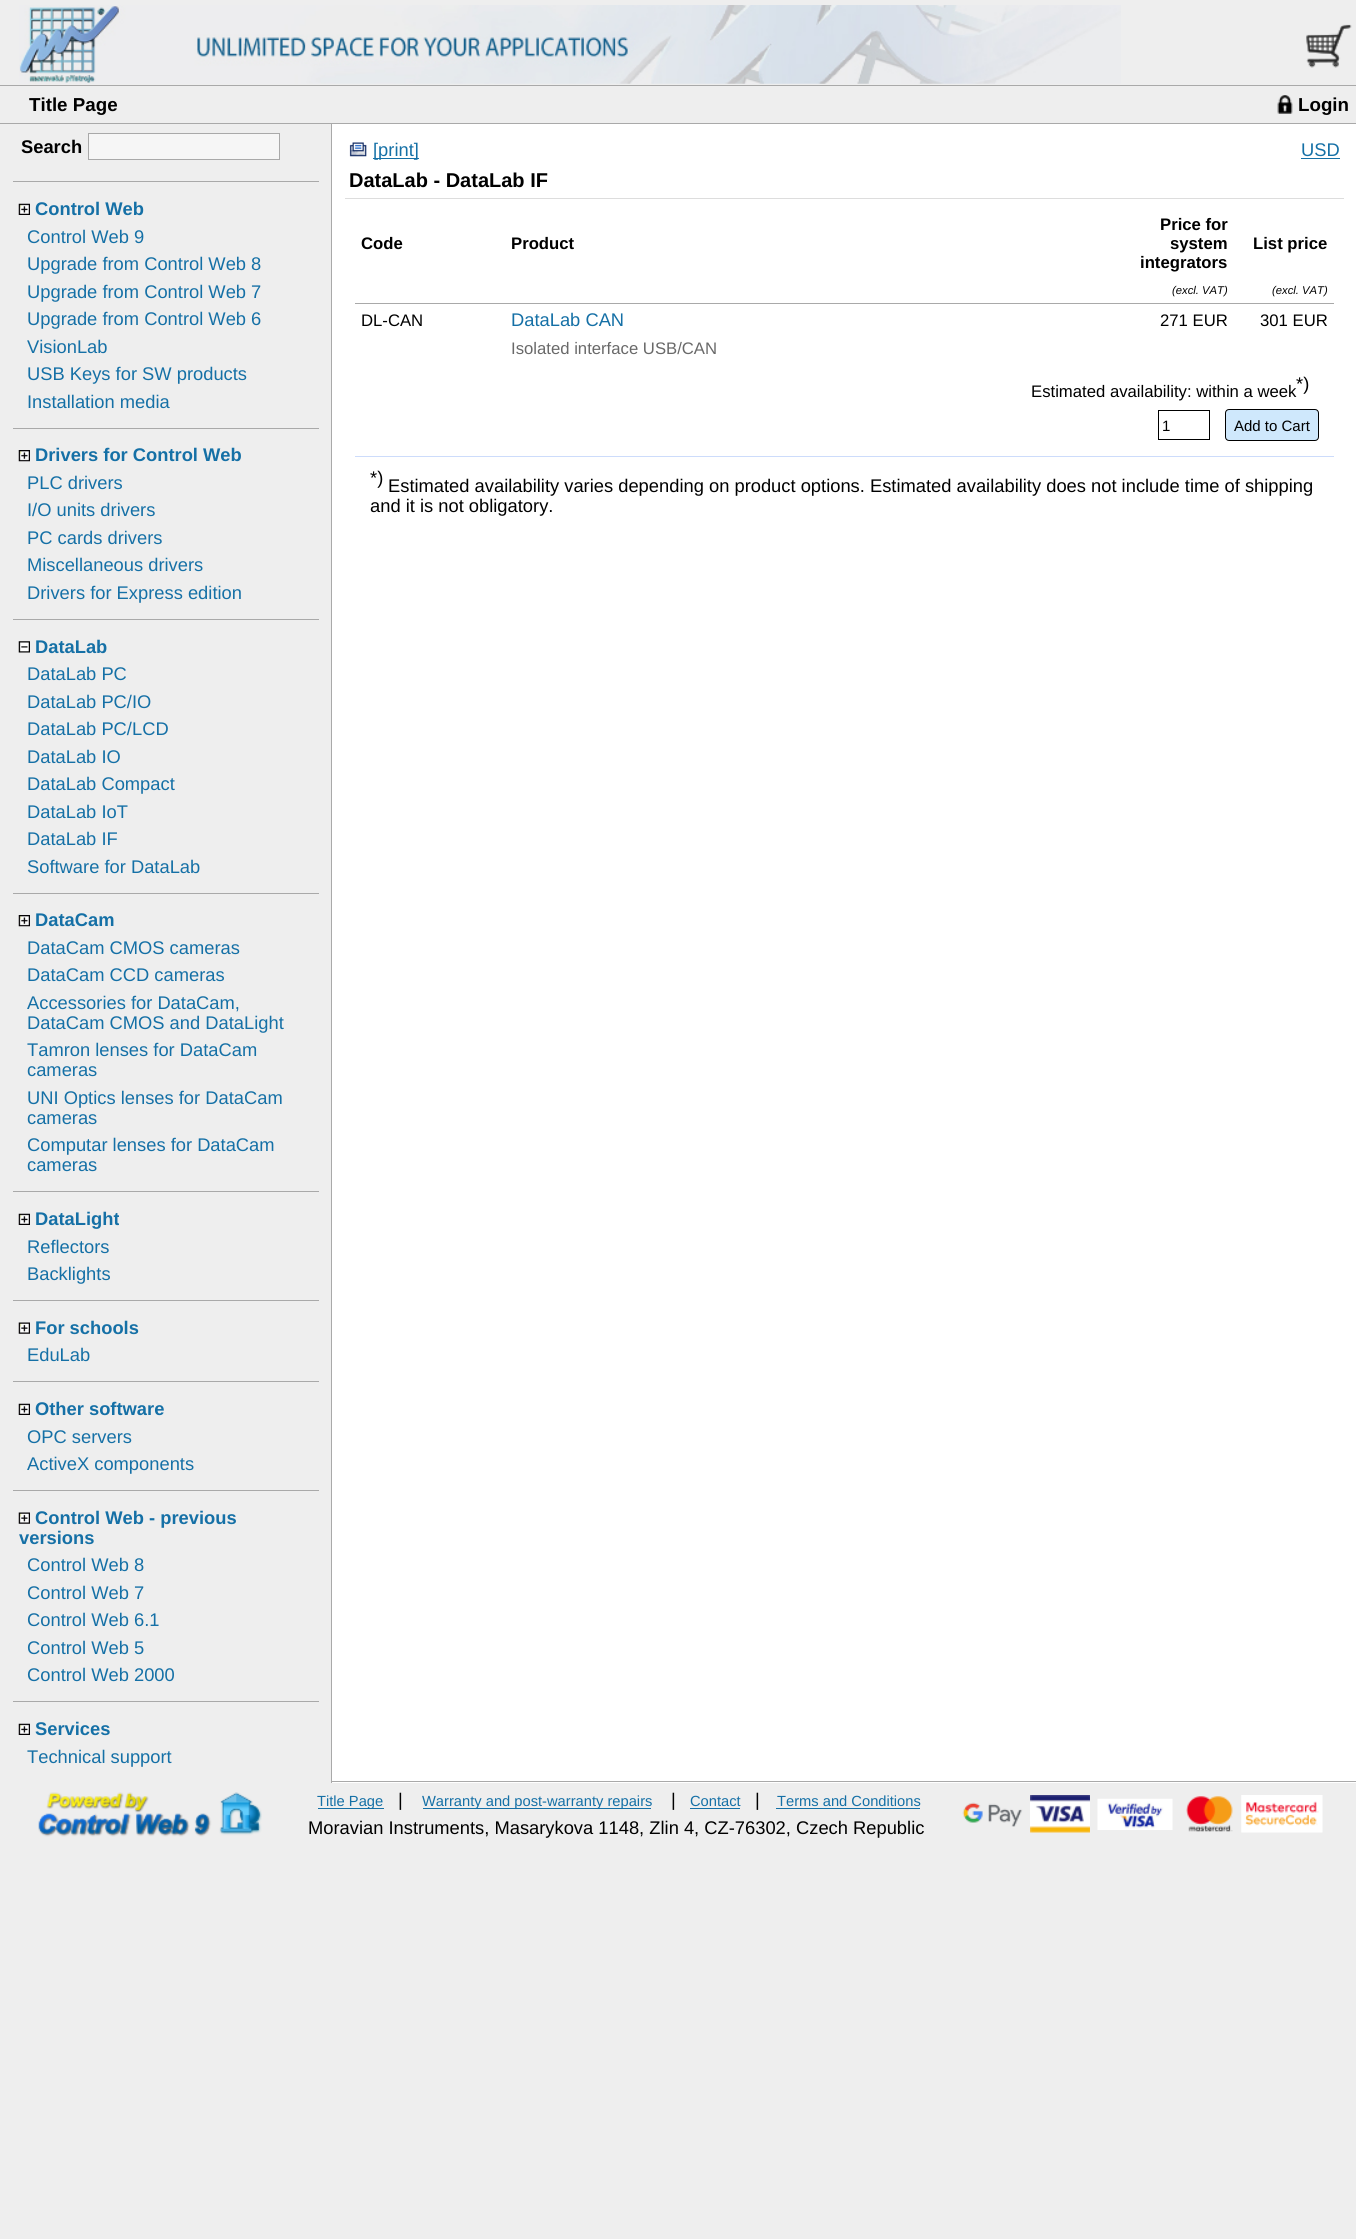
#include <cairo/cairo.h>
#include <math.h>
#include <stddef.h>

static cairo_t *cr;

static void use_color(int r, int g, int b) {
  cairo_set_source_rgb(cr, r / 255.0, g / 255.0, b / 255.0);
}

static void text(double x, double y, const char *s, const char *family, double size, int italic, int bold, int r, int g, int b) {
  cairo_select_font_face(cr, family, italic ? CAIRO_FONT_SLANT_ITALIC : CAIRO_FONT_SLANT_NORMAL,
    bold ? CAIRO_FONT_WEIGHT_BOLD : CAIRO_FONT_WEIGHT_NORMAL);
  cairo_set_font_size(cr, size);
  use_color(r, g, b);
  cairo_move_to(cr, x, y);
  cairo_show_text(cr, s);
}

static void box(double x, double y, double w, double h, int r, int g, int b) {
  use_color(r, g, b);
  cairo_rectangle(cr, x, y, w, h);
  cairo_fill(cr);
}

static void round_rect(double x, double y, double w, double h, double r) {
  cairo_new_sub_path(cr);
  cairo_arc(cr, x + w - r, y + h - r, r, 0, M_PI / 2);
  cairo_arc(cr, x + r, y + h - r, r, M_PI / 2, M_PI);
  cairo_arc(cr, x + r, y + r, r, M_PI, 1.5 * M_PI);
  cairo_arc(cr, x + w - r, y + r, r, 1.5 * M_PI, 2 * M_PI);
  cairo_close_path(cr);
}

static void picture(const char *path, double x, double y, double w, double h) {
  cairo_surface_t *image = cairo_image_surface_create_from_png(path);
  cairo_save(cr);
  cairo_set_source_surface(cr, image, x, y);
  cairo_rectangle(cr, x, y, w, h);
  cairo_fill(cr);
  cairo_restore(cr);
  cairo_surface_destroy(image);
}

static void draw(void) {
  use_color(238, 238, 238);
  cairo_paint(cr);
  picture("img_01.png", 19, 5, 1102, 79);
  picture("img_02.png", 1306, 24, 46, 44);
  box(0, 85, 1356, 1, 169, 169, 169);
  box(0, 123, 1356, 1, 169, 169, 169);
  picture("img_03.png", 1277, 95, 16, 19);
  box(332, 124, 1024, 1659, 255, 255, 255);
  use_color(246, 246, 246);
  cairo_rectangle(cr, 88.5, 133.5, 191, 26);
  cairo_fill_preserve(cr);
  use_color(169, 169, 169);
  cairo_set_line_width(cr, 1);
  cairo_stroke(cr);
  box(13, 181, 306, 1, 169, 169, 169);
  picture("img_04.png", 18, 203, 12, 12);
  box(13, 428, 306, 1, 169, 169, 169);
  picture("img_05.png", 18, 450, 12, 12);
  box(13, 619, 306, 1, 169, 169, 169);
  picture("img_06.png", 18, 641, 12, 12);
  box(13, 893, 306, 1, 169, 169, 169);
  picture("img_05.png", 18, 915, 12, 12);
  box(13, 1191, 306, 1, 169, 169, 169);
  picture("img_04.png", 18, 1213, 12, 12);
  box(13, 1300, 306, 1, 169, 169, 169);
  picture("img_07.png", 18, 1322, 12, 12);
  box(13, 1381, 306, 1, 169, 169, 169);
  picture("img_04.png", 18, 1403, 12, 12);
  box(13, 1490, 306, 1, 169, 169, 169);
  picture("img_07.png", 18, 1512, 12, 12);
  box(13, 1701, 306, 1, 169, 169, 169);
  picture("img_04.png", 18, 1723, 12, 12);
  box(331, 1781, 1025, 1, 169, 169, 169);
  box(331, 124, 1, 1659, 169, 169, 169);
  picture("img_08.png", 349, 142, 18, 15);
  box(373, 158, 46, 1, 21, 112, 166);
  box(1301, 158, 39, 1, 21, 112, 166);
  box(345, 198, 999, 1, 221, 221, 221);
  box(355, 456, 979, 1, 205, 220, 251);
  box(355, 303, 979, 1, 169, 169, 169);
  cairo_rectangle(cr, 1158.5, 410.5, 51, 29);
  use_color(0, 0, 0);
  cairo_stroke(cr);
  use_color(207, 232, 252);
  round_rect(1225.5, 409.5, 93, 31, 3.5);
  cairo_fill_preserve(cr);
  use_color(0, 0, 0);
  cairo_stroke(cr);
  picture("img_09.png", 38, 1792, 224, 45);
  box(318, 1808, 66, 1, 21, 112, 166);
  box(423, 1808, 228, 1, 21, 112, 166);
  box(690, 1808, 50, 1, 21, 112, 166);
  box(776, 1808, 144, 1, 21, 112, 166);
  picture("img_10.png", 962, 1802, 61, 25);
  picture("img_11.png", 1030, 1795, 60, 38);
  picture("img_12.png", 1097, 1798, 76, 32);
  picture("img_13.png", 1186, 1796, 47, 36);
  picture("img_14.png", 1241, 1795, 82, 38);
  text(29, 111, "Title Page", "Liberation Sans", 18.75, 0, 1, 0, 0, 0);
  text(1298, 111, "Login", "Liberation Sans", 18.75, 0, 1, 0, 0, 0);
  text(21, 153, "Search", "Liberation Sans", 18.33, 0, 1, 0, 0, 0);
  text(35, 215, "Control Web", "Liberation Sans", 18.33, 0, 1, 21, 112, 166);
  text(27, 243, "Control Web 9", "Liberation Sans", 18.33, 0, 0, 21, 112, 166);
  text(27, 270, "Upgrade from Control Web 8", "Liberation Sans", 18.33, 0, 0, 21, 112, 166);
  text(27, 298, "Upgrade from Control Web 7", "Liberation Sans", 18.33, 0, 0, 21, 112, 166);
  text(27, 325, "Upgrade from Control Web 6", "Liberation Sans", 18.33, 0, 0, 21, 112, 166);
  text(27, 353, "VisionLab", "Liberation Sans", 18.33, 0, 0, 21, 112, 166);
  text(27, 380, "USB Keys for SW products", "Liberation Sans", 18.33, 0, 0, 21, 112, 166);
  text(27, 408, "Installation media", "Liberation Sans", 18.33, 0, 0, 21, 112, 166);
  text(35, 461, "Drivers for Control Web", "Liberation Sans", 18.33, 0, 1, 21, 112, 166);
  text(27, 489, "PLC drivers", "Liberation Sans", 18.33, 0, 0, 21, 112, 166);
  text(27, 516, "I/O units drivers", "Liberation Sans", 18.33, 0, 0, 21, 112, 166);
  text(27, 544, "PC cards drivers", "Liberation Sans", 18.33, 0, 0, 21, 112, 166);
  text(27, 571, "Miscellaneous drivers", "Liberation Sans", 18.33, 0, 0, 21, 112, 166);
  text(27, 599, "Drivers for Express edition", "Liberation Sans", 18.33, 0, 0, 21, 112, 166);
  text(35, 653, "DataLab", "Liberation Sans", 18.33, 0, 1, 21, 112, 166);
  text(27, 680, "DataLab PC", "Liberation Sans", 18.33, 0, 0, 21, 112, 166);
  text(27, 708, "DataLab PC/IO", "Liberation Sans", 18.33, 0, 0, 21, 112, 166);
  text(27, 735, "DataLab PC/LCD", "Liberation Sans", 18.33, 0, 0, 21, 112, 166);
  text(27, 763, "DataLab IO", "Liberation Sans", 18.33, 0, 0, 21, 112, 166);
  text(27, 790, "DataLab Compact", "Liberation Sans", 18.33, 0, 0, 21, 112, 166);
  text(27, 818, "DataLab IoT", "Liberation Sans", 18.33, 0, 0, 21, 112, 166);
  text(27, 845, "DataLab IF", "Liberation Sans", 18.33, 0, 0, 21, 112, 166);
  text(27, 873, "Software for DataLab", "Liberation Sans", 18.33, 0, 0, 21, 112, 166);
  text(35, 926, "DataCam", "Liberation Sans", 18.33, 0, 1, 21, 112, 166);
  text(27, 954, "DataCam CMOS cameras", "Liberation Sans", 18.33, 0, 0, 21, 112, 166);
  text(27, 981, "DataCam CCD cameras", "Liberation Sans", 18.33, 0, 0, 21, 112, 166);
  text(27, 1009, "Accessories for DataCam,", "Liberation Sans", 18.33, 0, 0, 21, 112, 166);
  text(27, 1029, "DataCam CMOS and DataLight", "Liberation Sans", 18.33, 0, 0, 21, 112, 166);
  text(27, 1056, "Tamron lenses for DataCam", "Liberation Sans", 18.33, 0, 0, 21, 112, 166);
  text(27, 1076, "cameras", "Liberation Sans", 18.33, 0, 0, 21, 112, 166);
  text(27, 1104, "UNI Optics lenses for DataCam", "Liberation Sans", 18.33, 0, 0, 21, 112, 166);
  text(27, 1124, "cameras", "Liberation Sans", 18.33, 0, 0, 21, 112, 166);
  text(27, 1151, "Computar lenses for DataCam", "Liberation Sans", 18.33, 0, 0, 21, 112, 166);
  text(27, 1171, "cameras", "Liberation Sans", 18.33, 0, 0, 21, 112, 166);
  text(35, 1225, "DataLight", "Liberation Sans", 18.33, 0, 1, 21, 112, 166);
  text(27, 1253, "Reflectors", "Liberation Sans", 18.33, 0, 0, 21, 112, 166);
  text(27, 1280, "Backlights", "Liberation Sans", 18.33, 0, 0, 21, 112, 166);
  text(35, 1334, "For schools", "Liberation Sans", 18.33, 0, 1, 21, 112, 166);
  text(27, 1361, "EduLab", "Liberation Sans", 18.33, 0, 0, 21, 112, 166);
  text(35, 1415, "Other software", "Liberation Sans", 18.33, 0, 1, 21, 112, 166);
  text(27, 1443, "OPC servers", "Liberation Sans", 18.33, 0, 0, 21, 112, 166);
  text(27, 1470, "ActiveX components", "Liberation Sans", 18.33, 0, 0, 21, 112, 166);
  text(35, 1524, "Control Web - previous", "Liberation Sans", 18.33, 0, 1, 21, 112, 166);
  text(19, 1544, "versions", "Liberation Sans", 18.33, 0, 1, 21, 112, 166);
  text(27, 1571, "Control Web 8", "Liberation Sans", 18.33, 0, 0, 21, 112, 166);
  text(27, 1599, "Control Web 7", "Liberation Sans", 18.33, 0, 0, 21, 112, 166);
  text(27, 1626, "Control Web 6.1", "Liberation Sans", 18.33, 0, 0, 21, 112, 166);
  text(27, 1654, "Control Web 5", "Liberation Sans", 18.33, 0, 0, 21, 112, 166);
  text(27, 1681, "Control Web 2000", "Liberation Sans", 18.33, 0, 0, 21, 112, 166);
  text(35, 1735, "Services", "Liberation Sans", 18.33, 0, 1, 21, 112, 166);
  text(27, 1763, "Technical support", "Liberation Sans", 18.33, 0, 0, 21, 112, 166);
  text(373, 156, "[print]", "Liberation Sans", 18.33, 0, 0, 21, 112, 166);
  text(1301, 156, "USD", "Liberation Sans", 18.33, 0, 0, 21, 112, 166);
  text(349, 187, "DataLab - DataLab IF", "Liberation Sans", 20, 0, 1, 0, 0, 0);
  text(361, 249, "Code", "Liberation Sans", 16.7, 0, 1, 0, 0, 0);
  text(511, 249, "Product", "Liberation Sans", 16.7, 0, 1, 0, 0, 0);
  text(1160, 230, "Price for", "Liberation Sans", 16.7, 0, 1, 0, 0, 0);
  text(1170, 249, "system", "Liberation Sans", 16.7, 0, 1, 0, 0, 0);
  text(1140, 268, "integrators", "Liberation Sans", 16.7, 0, 1, 0, 0, 0);
  text(1253, 249, "List price", "Liberation Sans", 16.7, 0, 1, 0, 0, 0);
  text(1172, 294, "(excl. VAT)", "Liberation Sans", 11.25, 1, 0, 0, 0, 0);
  text(1272, 294, "(excl. VAT)", "Liberation Sans", 11.25, 1, 0, 0, 0, 0);
  text(361, 326, "DL-CAN", "Liberation Sans", 16.7, 0, 0, 0, 0, 0);
  text(511, 326, "DataLab CAN", "Liberation Sans", 18.33, 0, 0, 21, 112, 166);
  text(1160, 326, "271 EUR", "Liberation Sans", 16.7, 0, 0, 0, 0, 0);
  text(1260, 326, "301 EUR", "Liberation Sans", 16.7, 0, 0, 0, 0, 0);
  text(511, 354, "Isolated interface USB/CAN", "Liberation Sans", 16.7, 0, 0, 105, 105, 105);
  text(1031, 397, "Estimated availability: within a week", "Liberation Sans", 16.7, 0, 0, 0, 0, 0);
  text(1296, 390, "*)", "Liberation Sans", 18.33, 0, 0, 0, 0, 0);
  text(1162, 431, "1", "Liberation Sans", 15, 0, 0, 0, 0, 0);
  text(1234, 431, "Add to Cart", "Liberation Sans", 15, 0, 0, 0, 0, 0);
  text(370, 484, "*)", "Liberation Sans", 18.33, 0, 0, 0, 0, 0);
  text(388, 492, "Estimated availability varies depending on product options. Estimated availability does not include time of shipping", "Liberation Sans", 18.33, 0, 0, 0, 0, 0);
  text(370, 512, "and it is not obligatory.", "Liberation Sans", 18.33, 0, 0, 0, 0, 0);
  text(317, 1806, "Title Page", "Liberation Sans", 14.7, 0, 0, 21, 112, 166);
  text(398, 1806, "|", "Liberation Sans", 18.33, 0, 0, 0, 0, 0);
  text(422, 1806, "Warranty and post-warranty repairs", "Liberation Sans", 14.7, 0, 0, 21, 112, 166);
  text(671, 1806, "|", "Liberation Sans", 18.33, 0, 0, 0, 0, 0);
  text(690, 1806, "Contact", "Liberation Sans", 14.7, 0, 0, 21, 112, 166);
  text(755, 1806, "|", "Liberation Sans", 18.33, 0, 0, 0, 0, 0);
  text(777, 1806, "Terms and Conditions", "Liberation Sans", 14.7, 0, 0, 21, 112, 166);
  text(308, 1834, "Moravian Instruments, Masarykova 1148, Zlin 4, CZ-76302, Czech Republic", "Liberation Sans", 18.33, 0, 0, 0, 0, 0);
}

int main(void) {
  cairo_surface_t *surface = cairo_image_surface_create(CAIRO_FORMAT_RGB24, 1356, 2239);
  cr = cairo_create(surface);
  cairo_font_options_t *options = cairo_font_options_create();
  cairo_font_options_set_hint_metrics(options, CAIRO_HINT_METRICS_OFF);
  cairo_font_options_set_hint_style(options, CAIRO_HINT_STYLE_NONE);
  cairo_set_font_options(cr, options);
  cairo_set_miter_limit(cr, 4);
  draw();
  cairo_surface_write_to_png(surface, "out.png");
  cairo_font_options_destroy(options);
  cairo_destroy(cr);
  cairo_surface_destroy(surface);
  return 0;
}
